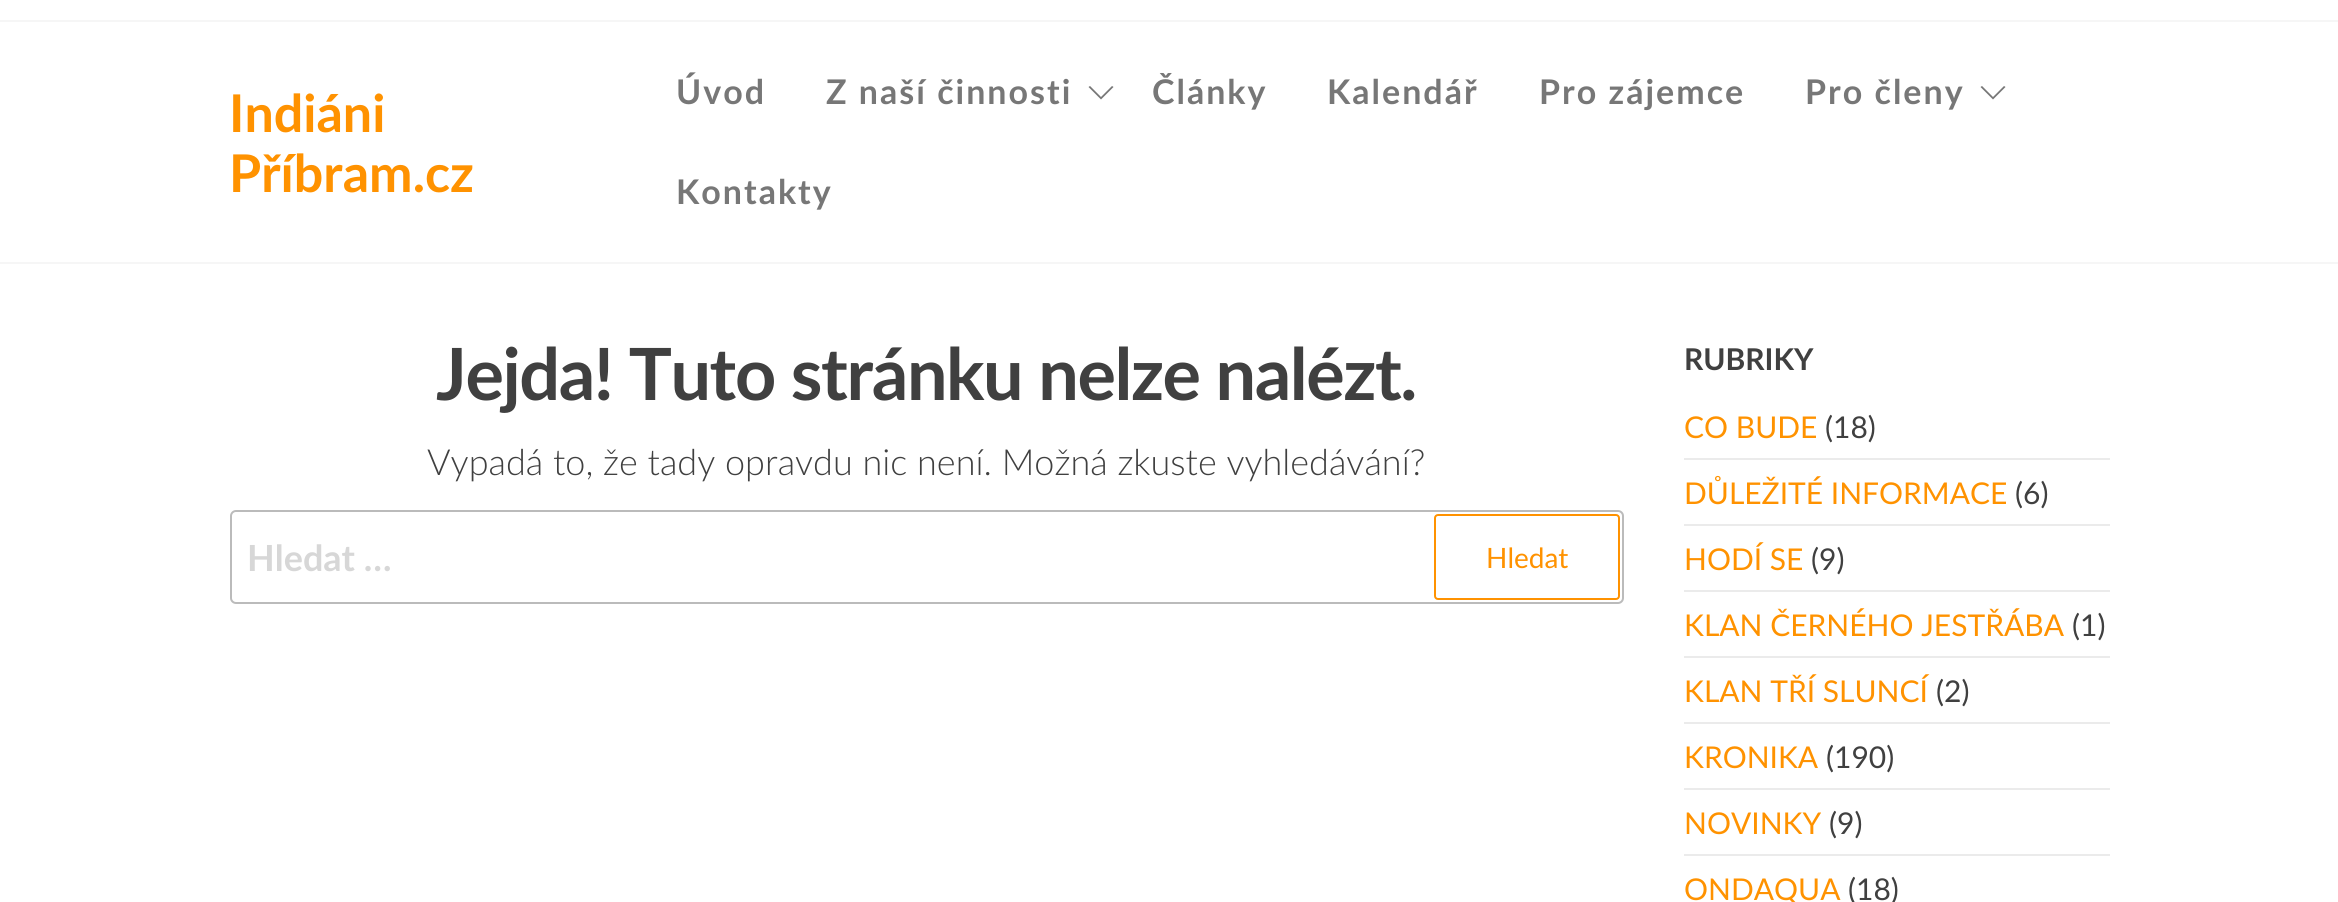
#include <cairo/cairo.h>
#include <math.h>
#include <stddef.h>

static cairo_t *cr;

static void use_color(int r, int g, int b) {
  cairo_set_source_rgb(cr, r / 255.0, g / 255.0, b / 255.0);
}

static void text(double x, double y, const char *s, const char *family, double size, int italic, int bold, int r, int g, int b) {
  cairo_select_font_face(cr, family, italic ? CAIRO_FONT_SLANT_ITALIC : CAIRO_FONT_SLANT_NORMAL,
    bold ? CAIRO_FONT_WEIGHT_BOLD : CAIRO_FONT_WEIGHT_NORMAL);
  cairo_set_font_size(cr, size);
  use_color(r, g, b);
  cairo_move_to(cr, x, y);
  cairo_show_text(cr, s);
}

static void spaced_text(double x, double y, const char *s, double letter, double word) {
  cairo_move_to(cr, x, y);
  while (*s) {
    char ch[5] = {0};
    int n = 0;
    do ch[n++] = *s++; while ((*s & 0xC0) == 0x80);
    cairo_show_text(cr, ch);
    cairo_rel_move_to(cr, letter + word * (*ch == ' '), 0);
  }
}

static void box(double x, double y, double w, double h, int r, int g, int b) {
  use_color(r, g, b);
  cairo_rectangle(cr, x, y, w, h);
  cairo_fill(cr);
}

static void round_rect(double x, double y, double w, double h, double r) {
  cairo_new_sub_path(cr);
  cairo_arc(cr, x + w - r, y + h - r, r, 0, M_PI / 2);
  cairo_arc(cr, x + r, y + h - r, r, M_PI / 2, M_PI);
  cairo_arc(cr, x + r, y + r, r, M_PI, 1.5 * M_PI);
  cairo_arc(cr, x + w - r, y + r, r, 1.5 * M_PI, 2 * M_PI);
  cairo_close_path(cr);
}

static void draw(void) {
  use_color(255, 255, 255);
  cairo_paint(cr);
  box(0, 20, 2338, 2, 246, 246, 246);
  box(0, 262, 2338, 2, 246, 246, 246);
  use_color(119, 119, 119);
  cairo_new_path(cr);
  cairo_move_to(cr, 1090, 86);
  cairo_line_to(cr, 1088.5, 87);
  cairo_line_to(cr, 1101, 99.5);
  cairo_line_to(cr, 1113.5, 87);
  cairo_line_to(cr, 1112, 86);
  cairo_line_to(cr, 1101, 97);
  cairo_close_path(cr);
  cairo_fill(cr);
  cairo_new_path(cr);
  cairo_move_to(cr, 1982, 86);
  cairo_line_to(cr, 1980.5, 87);
  cairo_line_to(cr, 1993, 99.5);
  cairo_line_to(cr, 2005.5, 87);
  cairo_line_to(cr, 2004, 86);
  cairo_line_to(cr, 1993, 97);
  cairo_close_path(cr);
  cairo_fill(cr);
  round_rect(231, 511, 1392, 92, 5);
  use_color(187, 187, 187);
  cairo_stroke(cr);
  round_rect(1435, 515, 184, 84, 3);
  use_color(255, 146, 0);
  cairo_stroke(cr);
  box(1684, 458, 426, 2, 235, 235, 235);
  box(1684, 524, 426, 2, 235, 235, 235);
  box(1684, 590, 426, 2, 235, 235, 235);
  box(1684, 656, 426, 2, 235, 235, 235);
  box(1684, 722, 426, 2, 235, 235, 235);
  box(1684, 788, 426, 2, 235, 235, 235);
  box(1684, 854, 426, 2, 235, 235, 235);
  text(229, 132, "Indiáni", "Lato", 52, 0, 1, 255, 146, 0);
  text(229, 192, "Příbram.cz", "Lato", 52, 0, 1, 255, 146, 0);
  cairo_set_font_size(cr, 34);
  use_color(119, 119, 119);
  spaced_text(676, 104, "Úvod", 2, 0);
  spaced_text(826, 104, "Z naší činnosti", 2, 0);
  spaced_text(1152, 104, "Články", 2, 0);
  spaced_text(1327, 104, "Kalendář", 2, 0);
  spaced_text(1539, 104, "Pro zájemce", 2, 0);
  spaced_text(1805, 104, "Pro členy", 2, 0);
  spaced_text(676, 204, "Kontakty", 2, 0);
  cairo_set_font_size(cr, 72);
  use_color(64, 64, 64);
  spaced_text(436, 400, "Jejda! Tuto stránku nelze nalézt.", -1.45, 0);
  text(427, 475, "Vypadá to, že tady opravdu nic není. Možná zkuste vyhledávání?", "Lato Light", 36, 0, 0, 64, 64, 64);
  text(247, 571, "Hledat …", "Lato", 36, 0, 1, 215, 215, 215);
  text(1486, 568, "Hledat", "Lato", 28, 0, 0, 255, 146, 0);
  text(1684, 370, "RUBRIKY", "Lato", 30, 0, 1, 64, 64, 64);
  text(1684, 438, "CO BUDE", "Lato", 30, 0, 0, 255, 146, 0);
  text(1825, 438, "(18)", "Lato", 30, 0, 0, 64, 64, 64);
  text(1684, 504, "DŮLEŽITÉ INFORMACE", "Lato", 30, 0, 0, 255, 146, 0);
  text(2015, 504, "(6)", "Lato", 30, 0, 0, 64, 64, 64);
  text(1684, 570, "HODÍ SE", "Lato", 30, 0, 0, 255, 146, 0);
  text(1811, 570, "(9)", "Lato", 30, 0, 0, 64, 64, 64);
  text(1684, 636, "KLAN ČERNÉHO JESTŘÁBA", "Lato", 30, 0, 0, 255, 146, 0);
  text(2072, 636, "(1)", "Lato", 30, 0, 0, 64, 64, 64);
  text(1684, 702, "KLAN TŘÍ SLUNCÍ", "Lato", 30, 0, 0, 255, 146, 0);
  text(1936, 702, "(2)", "Lato", 30, 0, 0, 64, 64, 64);
  text(1684, 768, "KRONIKA", "Lato", 30, 0, 0, 255, 146, 0);
  text(1826, 768, "(190)", "Lato", 30, 0, 0, 64, 64, 64);
  text(1684, 834, "NOVINKY", "Lato", 30, 0, 0, 255, 146, 0);
  text(1829, 834, "(9)", "Lato", 30, 0, 0, 64, 64, 64);
  text(1684, 900, "ONDAQUA", "Lato", 30, 0, 0, 255, 146, 0);
  text(1848, 900, "(18)", "Lato", 30, 0, 0, 64, 64, 64);
}

int main(void) {
  cairo_surface_t *surface = cairo_image_surface_create(CAIRO_FORMAT_RGB24, 2338, 902);
  cr = cairo_create(surface);
  cairo_font_options_t *options = cairo_font_options_create();
  cairo_font_options_set_hint_metrics(options, CAIRO_HINT_METRICS_OFF);
  cairo_font_options_set_hint_style(options, CAIRO_HINT_STYLE_NONE);
  cairo_set_font_options(cr, options);
  cairo_set_miter_limit(cr, 4);
  draw();
  cairo_surface_write_to_png(surface, "out.png");
  cairo_font_options_destroy(options);
  cairo_destroy(cr);
  cairo_surface_destroy(surface);
  return 0;
}
